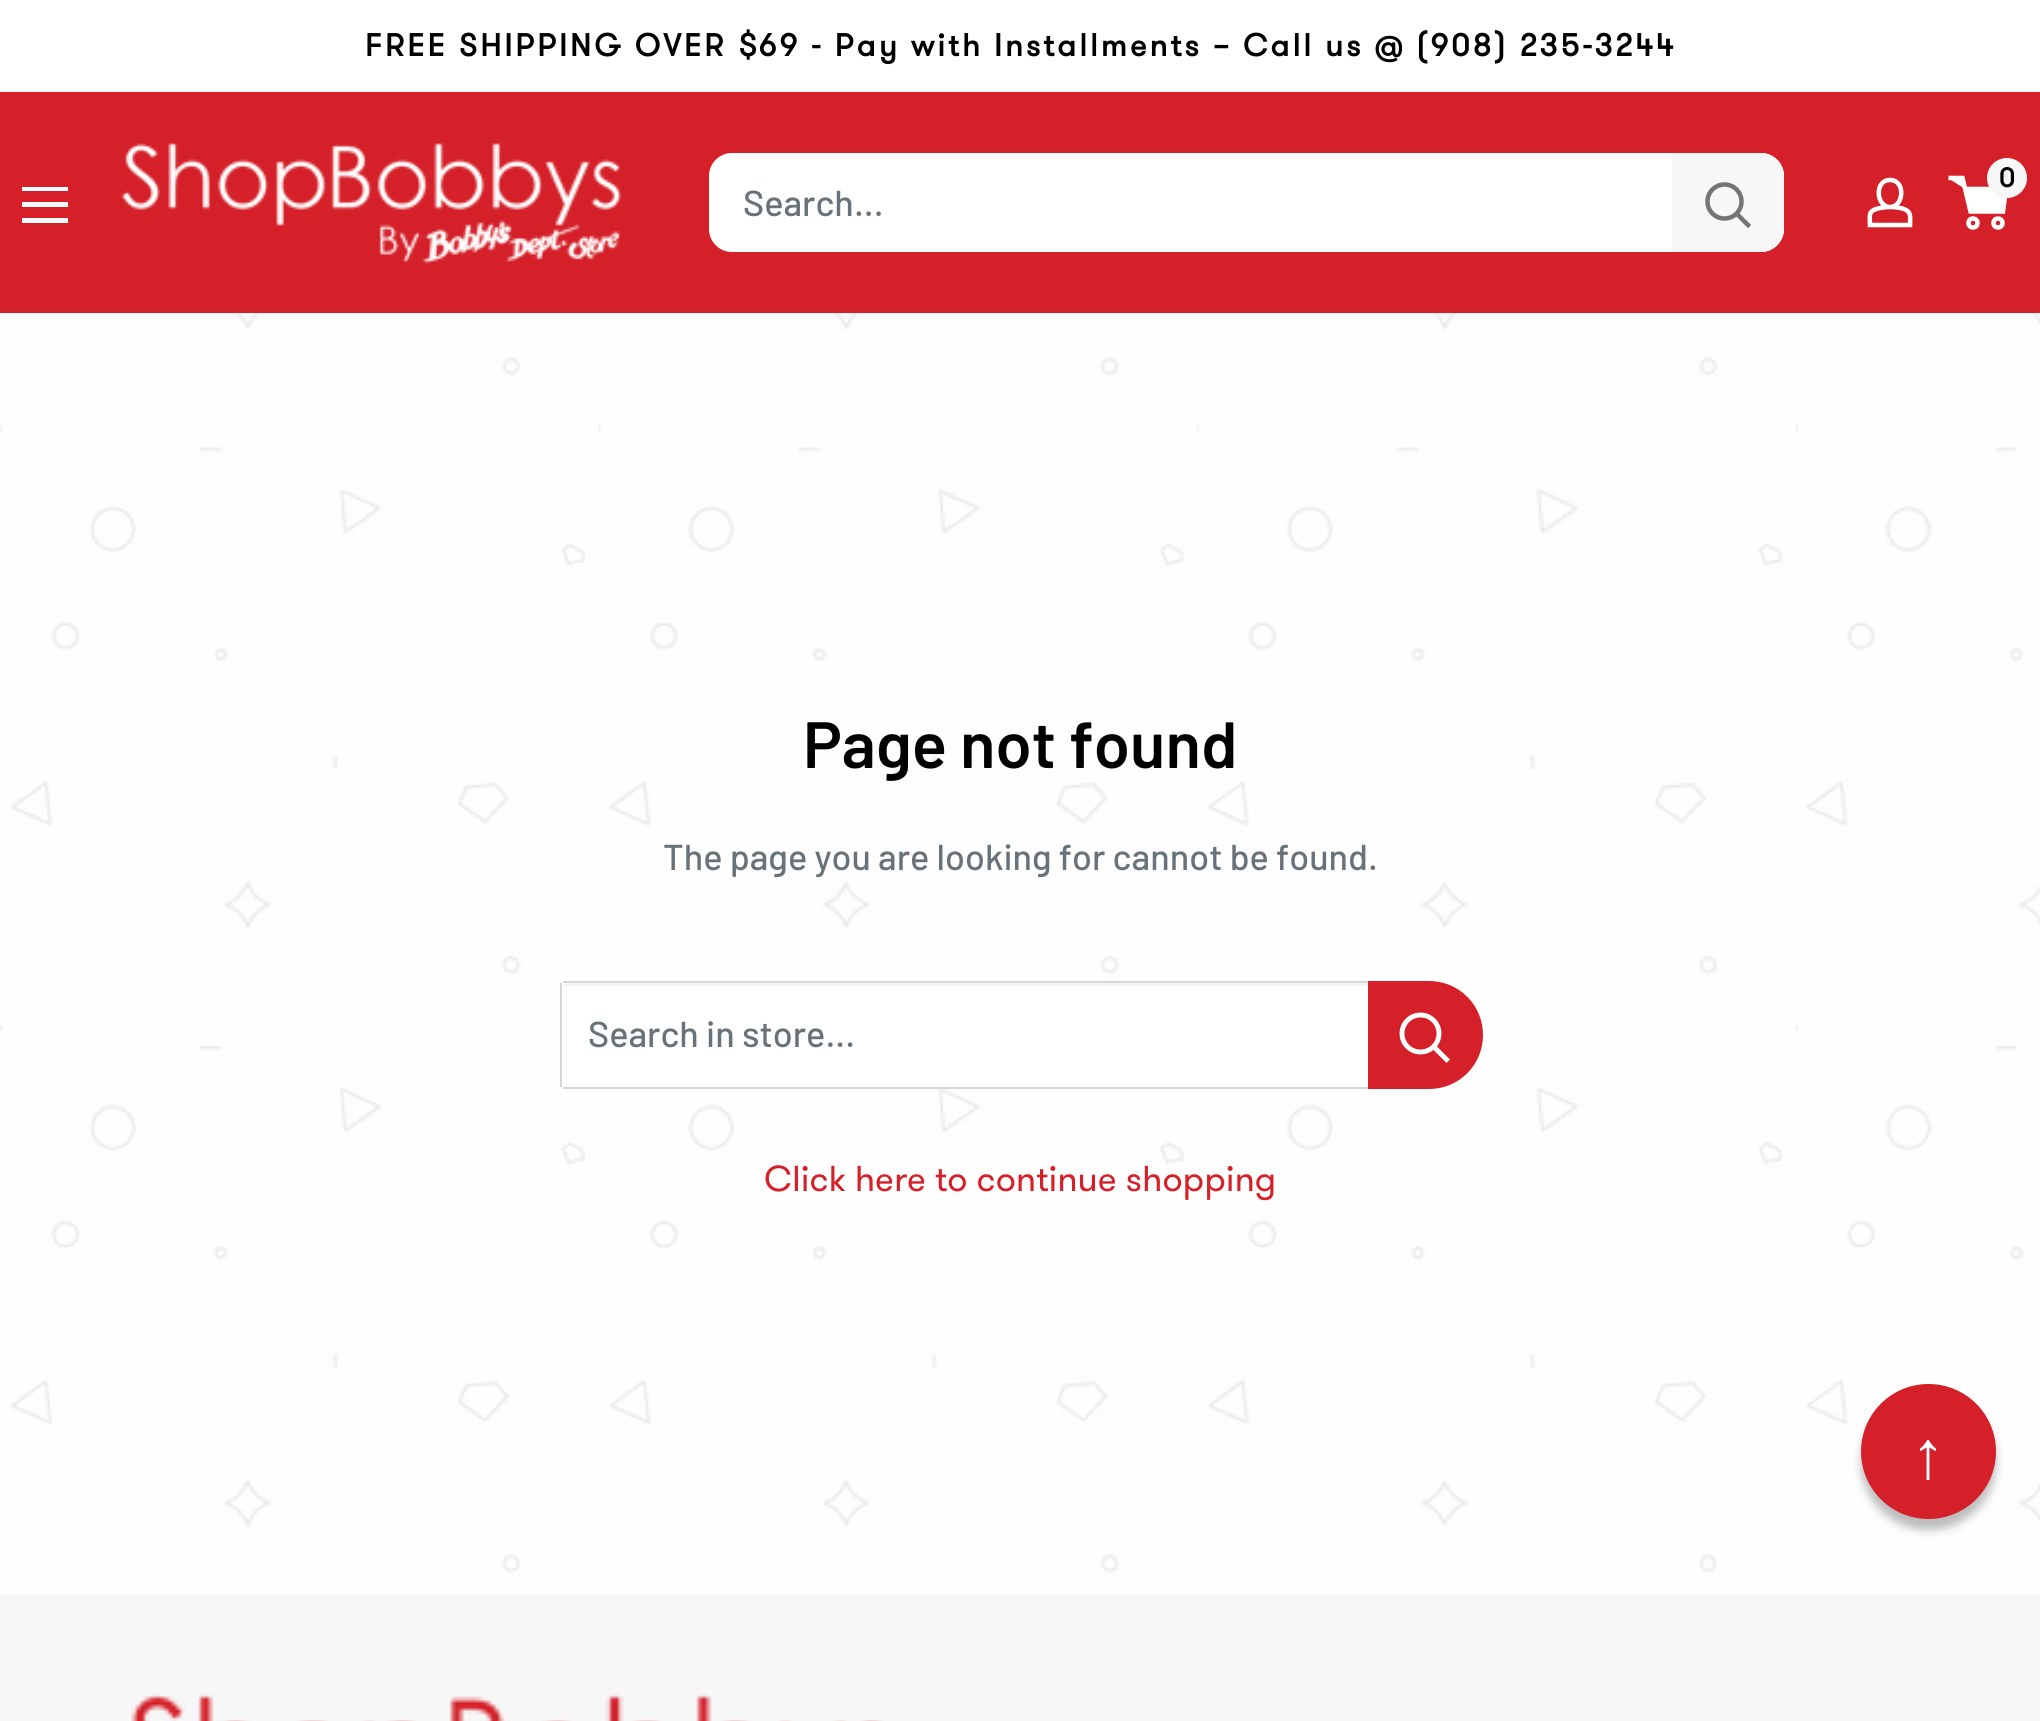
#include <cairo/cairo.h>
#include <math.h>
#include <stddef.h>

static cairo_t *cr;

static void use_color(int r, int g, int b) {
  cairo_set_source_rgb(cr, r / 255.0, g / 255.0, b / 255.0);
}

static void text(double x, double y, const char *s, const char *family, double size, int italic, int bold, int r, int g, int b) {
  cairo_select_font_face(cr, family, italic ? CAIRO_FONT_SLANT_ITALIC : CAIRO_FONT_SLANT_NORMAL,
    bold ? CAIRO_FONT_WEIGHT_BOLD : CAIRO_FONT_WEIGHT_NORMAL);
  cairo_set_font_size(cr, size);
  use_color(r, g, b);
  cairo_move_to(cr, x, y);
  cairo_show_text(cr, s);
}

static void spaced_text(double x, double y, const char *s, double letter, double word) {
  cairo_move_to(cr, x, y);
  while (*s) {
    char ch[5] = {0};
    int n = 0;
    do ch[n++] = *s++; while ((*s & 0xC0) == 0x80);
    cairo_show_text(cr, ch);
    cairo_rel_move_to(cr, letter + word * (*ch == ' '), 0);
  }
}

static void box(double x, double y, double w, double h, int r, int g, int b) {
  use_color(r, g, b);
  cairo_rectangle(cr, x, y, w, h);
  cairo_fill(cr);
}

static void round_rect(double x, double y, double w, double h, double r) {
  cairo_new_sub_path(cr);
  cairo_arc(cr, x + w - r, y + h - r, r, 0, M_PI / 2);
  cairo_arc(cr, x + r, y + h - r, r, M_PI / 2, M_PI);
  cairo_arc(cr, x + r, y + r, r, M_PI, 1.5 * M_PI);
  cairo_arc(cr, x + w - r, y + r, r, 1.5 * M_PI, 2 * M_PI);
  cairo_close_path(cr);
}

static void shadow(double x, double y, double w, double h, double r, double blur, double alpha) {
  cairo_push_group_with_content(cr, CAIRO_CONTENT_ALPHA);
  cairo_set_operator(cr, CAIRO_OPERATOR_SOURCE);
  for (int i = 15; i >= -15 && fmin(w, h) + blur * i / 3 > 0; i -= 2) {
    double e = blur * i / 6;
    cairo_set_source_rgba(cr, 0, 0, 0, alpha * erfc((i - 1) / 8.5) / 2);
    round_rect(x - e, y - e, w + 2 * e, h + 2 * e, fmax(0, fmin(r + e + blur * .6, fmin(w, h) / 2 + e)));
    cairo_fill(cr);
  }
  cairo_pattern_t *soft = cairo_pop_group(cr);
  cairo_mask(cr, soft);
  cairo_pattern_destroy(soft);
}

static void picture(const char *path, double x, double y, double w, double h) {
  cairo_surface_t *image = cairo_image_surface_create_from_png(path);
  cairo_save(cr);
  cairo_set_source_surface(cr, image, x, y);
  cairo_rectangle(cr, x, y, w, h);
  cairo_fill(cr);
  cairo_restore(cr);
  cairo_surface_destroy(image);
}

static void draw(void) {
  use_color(255, 255, 255);
  cairo_paint(cr);
  picture("img_01.png", 0, 313, 2040, 1282);
  box(0, 90, 2040, 2, 247, 247, 247);
  box(0, 92, 2040, 221, 213, 32, 41);
  picture("img_02.png", 121, 143, 501, 121);
  cairo_new_path(cr);
  cairo_move_to(cr, 1890, 207);
  cairo_curve_to(cr, 1894, 207, 1898.5, 207.5, 1902.5, 208.5);
  cairo_curve_to(cr, 1912, 211.5, 1910, 216.5, 1910, 225);
  cairo_line_to(cr, 1870, 225);
  cairo_curve_to(cr, 1870, 216, 1867.5, 211, 1878, 208.5);
  cairo_curve_to(cr, 1882, 207.5, 1886, 207, 1890, 207);
  cairo_close_path(cr);
  cairo_move_to(cr, 1890, 207);
  cairo_curve_to(cr, 1876, 207, 1874, 180, 1890, 180);
  cairo_curve_to(cr, 1906, 180, 1904, 207, 1890, 207);
  cairo_close_path(cr);
  use_color(255, 255, 255);
  cairo_set_line_width(cr, 4.5);
  cairo_stroke(cr);
  cairo_set_fill_rule(cr, CAIRO_FILL_RULE_EVEN_ODD);
  cairo_new_path(cr);
  cairo_move_to(cr, 1965, 189);
  cairo_line_to(cr, 2006, 189);
  cairo_line_to(cr, 2003, 212);
  cairo_line_to(cr, 1971, 212);
  cairo_line_to(cr, 1962, 178);
  cairo_line_to(cr, 1948, 178);
  cairo_fill(cr);
  cairo_new_path(cr);
  cairo_move_to(cr, 1965, 189);
  cairo_line_to(cr, 2006, 189);
  cairo_line_to(cr, 2003, 211.5);
  cairo_line_to(cr, 1970.5, 211.5);
  cairo_line_to(cr, 1962.5, 178);
  cairo_line_to(cr, 1948.5, 178);
  cairo_stroke(cr);
  use_color(247, 247, 247);
  cairo_arc(cr, 2007, 178, 20, 0, 2 * M_PI);
  cairo_fill(cr);
  cairo_arc(cr, 1973, 223, 4.5, 0, 2 * M_PI);
  use_color(255, 255, 255);
  cairo_stroke(cr);
  cairo_arc(cr, 1998, 223, 4.5, 0, 2 * M_PI);
  cairo_stroke(cr);
  cairo_new_path(cr);
  cairo_move_to(cr, 22, 218);
  cairo_line_to(cr, 68, 218);
  cairo_line_to(cr, 68, 223);
  cairo_line_to(cr, 22, 223);
  cairo_close_path(cr);
  cairo_move_to(cr, 22, 187);
  cairo_line_to(cr, 68, 187);
  cairo_line_to(cr, 68, 191);
  cairo_line_to(cr, 22, 191);
  cairo_close_path(cr);
  cairo_move_to(cr, 22, 202);
  cairo_line_to(cr, 68, 202);
  cairo_line_to(cr, 68, 207);
  cairo_line_to(cr, 22, 207);
  cairo_close_path(cr);
  cairo_fill(cr);
  round_rect(709, 153, 1075, 99, 23);
  cairo_fill(cr);
  use_color(247, 247, 247);
  cairo_new_path(cr);
  cairo_move_to(cr, 1672, 153);
  cairo_line_to(cr, 1761, 153);
  cairo_curve_to(cr, 1773.5, 153, 1784, 163.5, 1784, 176);
  cairo_line_to(cr, 1784, 229);
  cairo_curve_to(cr, 1784, 241.5, 1773.5, 252, 1761, 252);
  cairo_line_to(cr, 1672, 252);
  cairo_close_path(cr);
  cairo_fill(cr);
  cairo_new_path(cr);
  cairo_move_to(cr, 1748, 225);
  cairo_line_to(cr, 1737, 214);
  use_color(116, 116, 116);
  cairo_set_line_cap(cr, CAIRO_LINE_CAP_SQUARE);
  cairo_stroke(cr);
  cairo_arc(cr, 1724.5, 201.5, 17, 0, 2 * M_PI);
  cairo_set_line_cap(cr, CAIRO_LINE_CAP_BUTT);
  cairo_stroke(cr);
  use_color(255, 255, 255);
  cairo_new_path(cr);
  cairo_move_to(cr, 565, 981);
  cairo_line_to(cr, 1368, 981);
  cairo_line_to(cr, 1368, 1089);
  cairo_line_to(cr, 565, 1089);
  cairo_curve_to(cr, 562, 1089, 560, 1087, 560, 1084);
  cairo_line_to(cr, 560, 986);
  cairo_curve_to(cr, 560, 983, 562, 981, 565, 981);
  cairo_close_path(cr);
  cairo_fill(cr);
  use_color(244, 245, 245);
  cairo_set_fill_rule(cr, CAIRO_FILL_RULE_WINDING);
  cairo_new_path(cr);
  cairo_move_to(cr, 565, 986);
  cairo_line_to(cr, 1368, 986);
  cairo_line_to(cr, 1368, 983);
  cairo_line_to(cr, 565, 983);
  cairo_line_to(cr, 563, 984);
  cairo_line_to(cr, 563, 987);
  cairo_close_path(cr);
  cairo_fill(cr);
  box(563, 981, 805, 2, 212, 214, 216);
  box(563, 1087, 805, 2, 212, 214, 216);
  box(560, 983, 2, 104, 212, 214, 216);
  use_color(213, 32, 41);
  cairo_new_path(cr);
  cairo_move_to(cr, 1368, 981);
  cairo_line_to(cr, 1429, 981);
  cairo_curve_to(cr, 1459, 981, 1483, 1005, 1483, 1035);
  cairo_curve_to(cr, 1483, 1065, 1459, 1089, 1429, 1089);
  cairo_line_to(cr, 1368, 1089);
  cairo_close_path(cr);
  cairo_fill(cr);
  cairo_new_path(cr);
  cairo_move_to(cr, 1446.5, 1059.5);
  cairo_line_to(cr, 1434, 1047);
  use_color(255, 255, 255);
  cairo_set_line_width(cr, 4.9);
  cairo_set_line_cap(cr, CAIRO_LINE_CAP_SQUARE);
  cairo_stroke(cr);
  cairo_arc(cr, 1420.5, 1033.5, 18.5, 0, 2 * M_PI);
  cairo_set_line_cap(cr, CAIRO_LINE_CAP_BUTT);
  cairo_stroke(cr);
  use_color(0, 0, 0);
  shadow(1861, 1395, 135, 135, 67.5, 4.5, 0.26);
  use_color(213, 32, 41);
  cairo_arc(cr, 1928.5, 1451.5, 67.5, 0, 2 * M_PI);
  cairo_fill(cr);
  box(0, 1595, 2040, 126, 247, 247, 247);
  picture("img_03.png", 131, 1693, 751, 28);
  cairo_select_font_face(cr, "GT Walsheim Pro", CAIRO_FONT_SLANT_NORMAL, CAIRO_FONT_WEIGHT_BOLD);
  cairo_set_font_size(cr, 31.5);
  use_color(0, 0, 0);
  spaced_text(365, 56, "FREE SHIPPING OVER $69 - Pay with Installments – Call us @ (908) 235-3244", 3.15, 0);
  text(1999, 187, "0", "GT Walsheim Pro", 27, 0, 1, 0, 0, 0);
  text(743, 216, "Search...", "Barlow Medium", 36, 0, 0, 103, 114, 121);
  text(803, 768, "Page not found", "Barlow SemiBold", 65.25, 0, 0, 0, 0, 0);
  text(663, 870, "The page you are looking for cannot be found.", "Barlow Medium", 36, 0, 0, 103, 114, 121);
  text(588, 1047, "Search in store...", "Barlow Medium", 36, 0, 0, 103, 114, 121);
  text(764, 1191, "Click here to continue shopping", "GT Walsheim Pro", 36, 0, 0, 213, 32, 41);
  text(1911, 1478, "↑", "Liberation Sans", 68, 0, 0, 255, 255, 255);
}

int main(void) {
  cairo_surface_t *surface = cairo_image_surface_create(CAIRO_FORMAT_RGB24, 2040, 1721);
  cr = cairo_create(surface);
  cairo_font_options_t *options = cairo_font_options_create();
  cairo_font_options_set_hint_metrics(options, CAIRO_HINT_METRICS_OFF);
  cairo_font_options_set_hint_style(options, CAIRO_HINT_STYLE_NONE);
  cairo_set_font_options(cr, options);
  cairo_set_miter_limit(cr, 4);
  draw();
  cairo_surface_write_to_png(surface, "out.png");
  cairo_font_options_destroy(options);
  cairo_destroy(cr);
  cairo_surface_destroy(surface);
  return 0;
}
